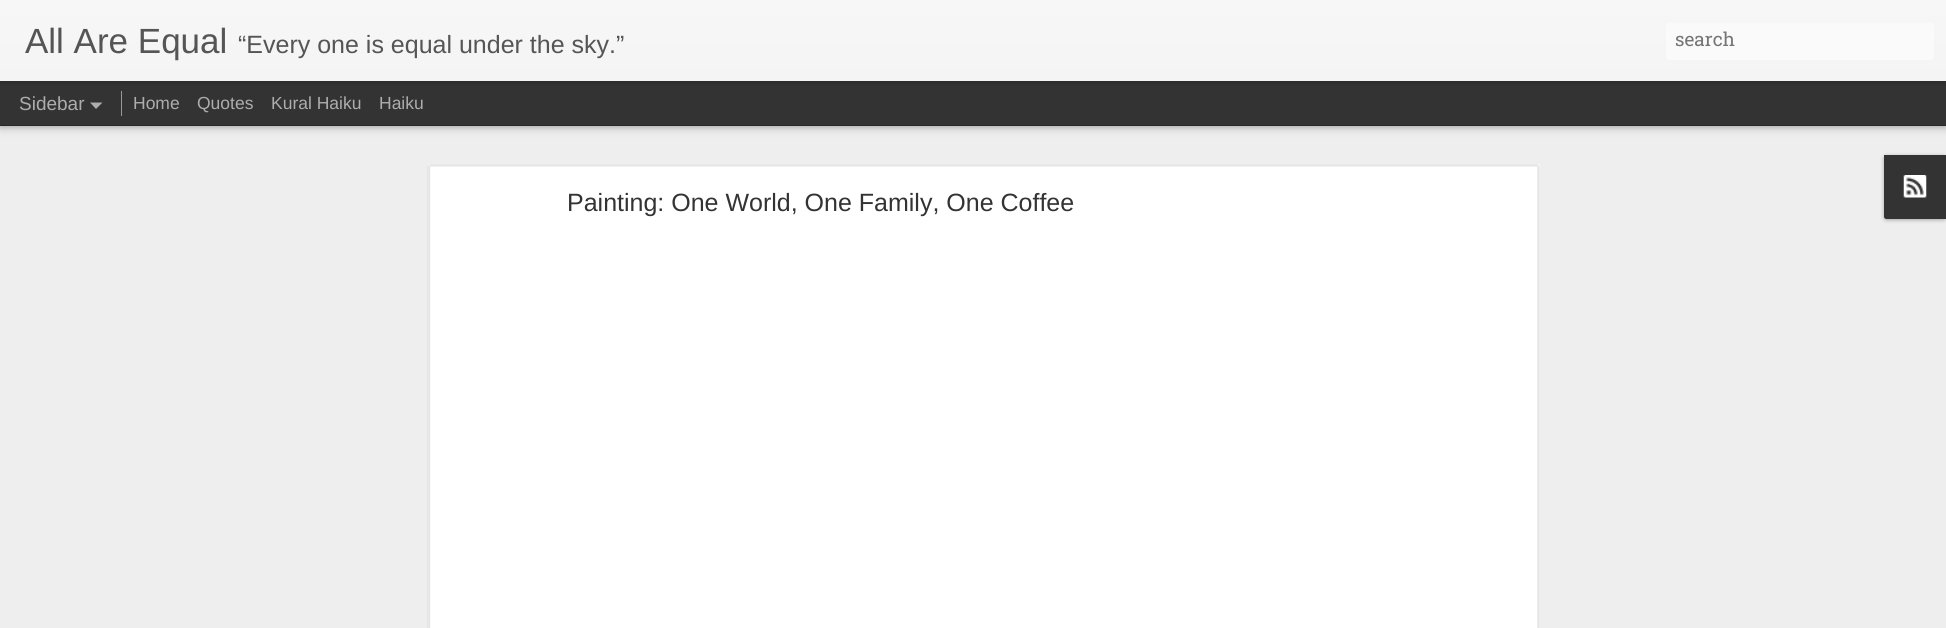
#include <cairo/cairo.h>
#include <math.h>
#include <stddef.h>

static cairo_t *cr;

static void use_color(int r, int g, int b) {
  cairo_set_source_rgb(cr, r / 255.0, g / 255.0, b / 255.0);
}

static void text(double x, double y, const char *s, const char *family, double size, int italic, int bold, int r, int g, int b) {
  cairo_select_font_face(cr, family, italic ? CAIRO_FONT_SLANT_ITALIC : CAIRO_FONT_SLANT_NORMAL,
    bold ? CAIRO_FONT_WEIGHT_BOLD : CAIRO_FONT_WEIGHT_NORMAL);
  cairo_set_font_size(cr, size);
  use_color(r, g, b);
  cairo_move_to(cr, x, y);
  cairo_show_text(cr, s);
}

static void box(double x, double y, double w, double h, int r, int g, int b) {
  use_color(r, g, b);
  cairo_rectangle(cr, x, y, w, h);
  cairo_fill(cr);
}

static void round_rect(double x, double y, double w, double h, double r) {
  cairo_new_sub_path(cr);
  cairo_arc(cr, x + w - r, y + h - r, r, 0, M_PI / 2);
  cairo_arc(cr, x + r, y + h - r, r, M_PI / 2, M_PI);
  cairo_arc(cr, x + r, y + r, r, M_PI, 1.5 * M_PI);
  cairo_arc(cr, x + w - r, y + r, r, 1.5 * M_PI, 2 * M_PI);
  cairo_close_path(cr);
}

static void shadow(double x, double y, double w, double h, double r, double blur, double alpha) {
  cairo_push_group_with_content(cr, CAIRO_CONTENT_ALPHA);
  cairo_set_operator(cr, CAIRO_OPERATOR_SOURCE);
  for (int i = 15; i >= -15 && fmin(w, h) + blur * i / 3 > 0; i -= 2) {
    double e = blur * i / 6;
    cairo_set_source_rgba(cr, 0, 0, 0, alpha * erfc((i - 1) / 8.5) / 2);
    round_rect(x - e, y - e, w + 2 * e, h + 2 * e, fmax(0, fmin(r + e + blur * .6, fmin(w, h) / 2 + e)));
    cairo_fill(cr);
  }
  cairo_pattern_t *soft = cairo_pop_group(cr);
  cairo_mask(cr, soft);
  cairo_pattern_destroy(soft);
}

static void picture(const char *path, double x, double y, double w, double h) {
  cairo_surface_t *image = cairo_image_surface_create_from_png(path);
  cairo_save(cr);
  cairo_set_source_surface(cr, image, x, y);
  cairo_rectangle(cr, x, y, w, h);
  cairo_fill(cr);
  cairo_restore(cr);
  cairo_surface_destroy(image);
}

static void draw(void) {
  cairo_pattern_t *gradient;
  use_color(51, 51, 51);
  cairo_paint(cr);
  box(0, 126, 1946, 502, 238, 238, 238);
  use_color(0, 0, 0);
  shadow(0, 81, 1946, 44, 0, 5, 0.5);
  box(0, 81, 1946, 44, 51, 51, 51);
  use_color(0, 0, 0);
  shadow(0, 0, 1946, 81, 0, 3, 0.3);
  gradient = cairo_pattern_create_linear(0, 0, 0, 81);
  cairo_pattern_add_color_stop_rgba(gradient, 0, 0.969, 0.969, 0.969, 1);
  cairo_pattern_add_color_stop_rgba(gradient, 1, 0.957, 0.957, 0.957, 1);
  cairo_set_source(cr, gradient);
  cairo_pattern_destroy(gradient);
  cairo_rectangle(cr, 0, 0, 1946, 81);
  cairo_fill(cr);
  use_color(250, 250, 250);
  round_rect(1666, 23, 268, 37, 4);
  cairo_fill(cr);
  use_color(173, 173, 173);
  cairo_new_path(cr);
  cairo_move_to(cr, 90, 102.5);
  cairo_line_to(cr, 102.5, 102.5);
  cairo_line_to(cr, 96, 109);
  cairo_close_path(cr);
  cairo_fill(cr);
  box(121, 91, 1, 25, 153, 153, 153);
  box(428, 164, 1112, 464, 255, 255, 255);
  picture("img_01.png", 427, 164, 1113, 464);
  use_color(0, 0, 0);
  shadow(1884, 156, 62, 64, 2.5, 2, 0.3);
  use_color(51, 51, 51);
  cairo_new_path(cr);
  cairo_move_to(cr, 1884, 155);
  cairo_line_to(cr, 1946, 155);
  cairo_line_to(cr, 1946, 219);
  cairo_line_to(cr, 1886.5, 219);
  cairo_curve_to(cr, 1885, 219, 1884, 218, 1884, 216.5);
  cairo_close_path(cr);
  cairo_fill(cr);
  picture("img_02.png", 1903, 175, 24, 23);
  text(25, 53, "All Are Equal", "Liberation Sans", 35, 0, 0, 85, 85, 85);
  text(238, 53, "“Every one is equal under the sky.”", "Liberation Sans", 25, 0, 0, 85, 85, 85);
  text(1675, 46, "search", "Hanuman", 19, 0, 0, 117, 117, 117);
  text(19, 110, "Sidebar", "Liberation Sans", 19, 0, 0, 173, 173, 173);
  text(133, 109, "Home", "Liberation Sans", 17.5, 0, 0, 173, 173, 173);
  text(197, 109, "Quotes", "Liberation Sans", 17.5, 0, 0, 173, 173, 173);
  text(271, 109, "Kural Haiku", "Liberation Sans", 17.5, 0, 0, 173, 173, 173);
  text(379, 109, "Haiku", "Liberation Sans", 17.5, 0, 0, 173, 173, 173);
  text(567, 211, "Painting: One World, One Family, One Coffee", "Liberation Sans", 25, 0, 0, 51, 51, 51);
}

int main(void) {
  cairo_surface_t *surface = cairo_image_surface_create(CAIRO_FORMAT_RGB24, 1946, 628);
  cr = cairo_create(surface);
  cairo_font_options_t *options = cairo_font_options_create();
  cairo_font_options_set_hint_metrics(options, CAIRO_HINT_METRICS_OFF);
  cairo_font_options_set_hint_style(options, CAIRO_HINT_STYLE_NONE);
  cairo_set_font_options(cr, options);
  cairo_set_miter_limit(cr, 4);
  draw();
  cairo_surface_write_to_png(surface, "out.png");
  cairo_font_options_destroy(options);
  cairo_destroy(cr);
  cairo_surface_destroy(surface);
  return 0;
}
